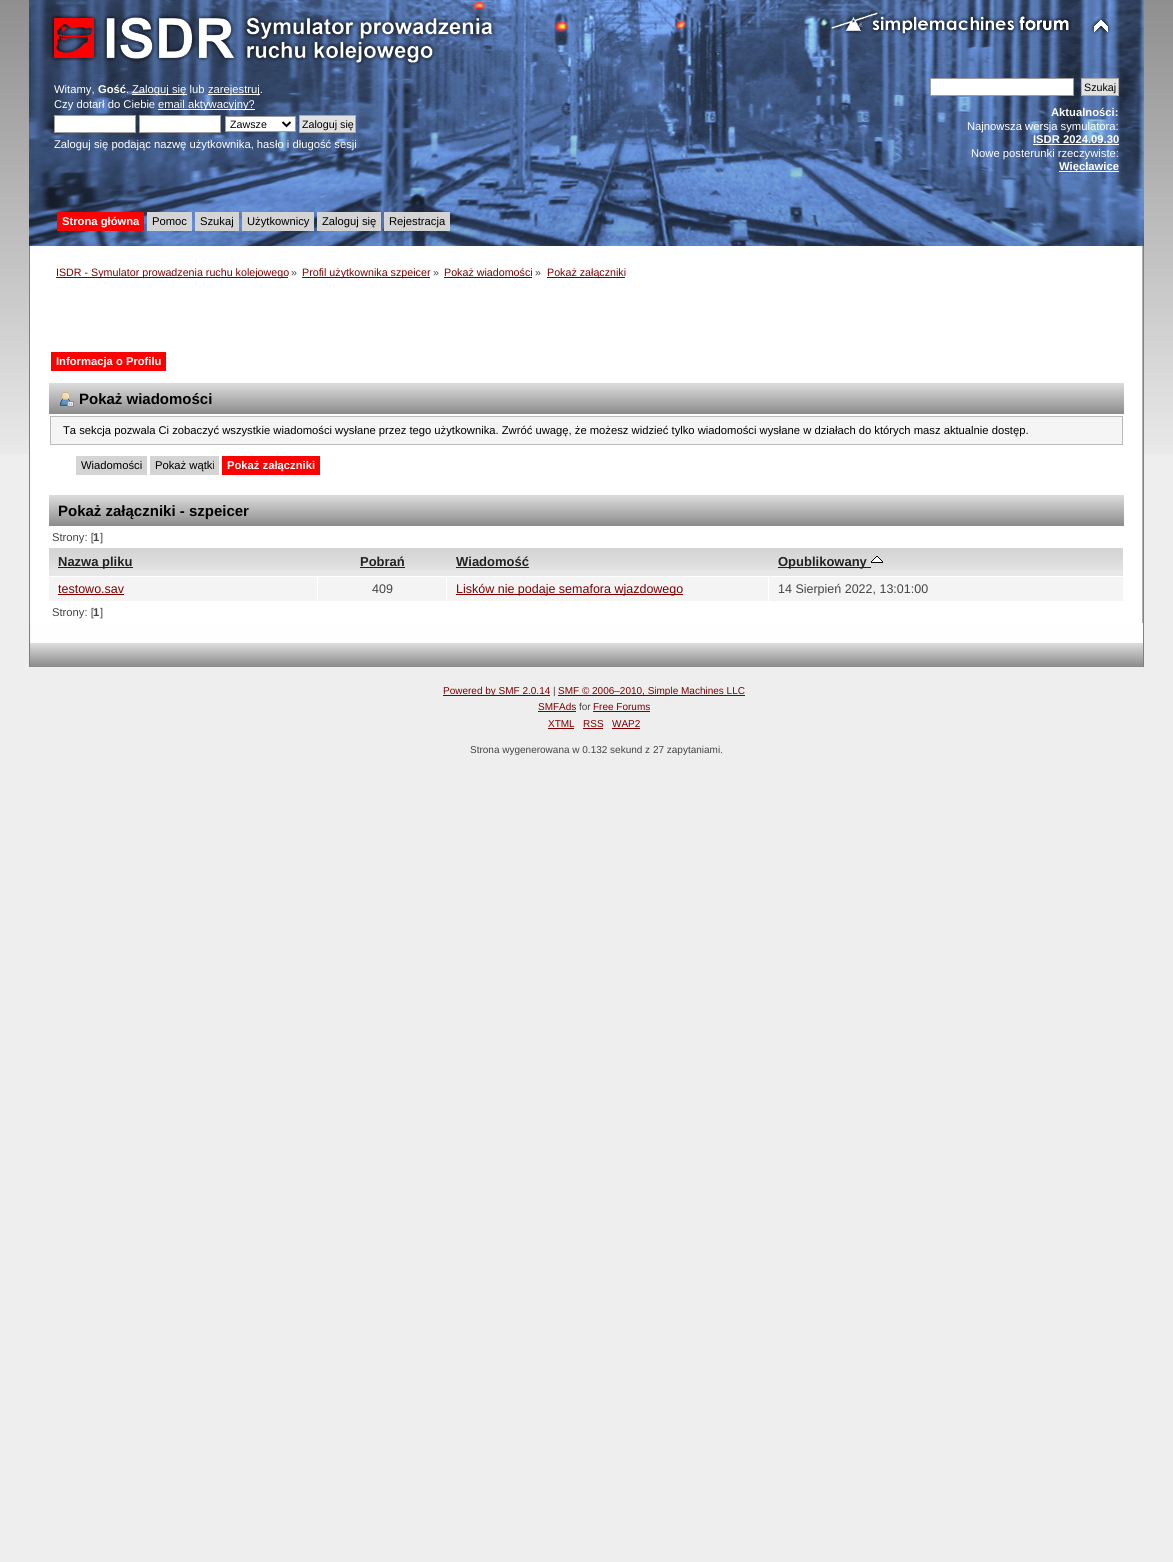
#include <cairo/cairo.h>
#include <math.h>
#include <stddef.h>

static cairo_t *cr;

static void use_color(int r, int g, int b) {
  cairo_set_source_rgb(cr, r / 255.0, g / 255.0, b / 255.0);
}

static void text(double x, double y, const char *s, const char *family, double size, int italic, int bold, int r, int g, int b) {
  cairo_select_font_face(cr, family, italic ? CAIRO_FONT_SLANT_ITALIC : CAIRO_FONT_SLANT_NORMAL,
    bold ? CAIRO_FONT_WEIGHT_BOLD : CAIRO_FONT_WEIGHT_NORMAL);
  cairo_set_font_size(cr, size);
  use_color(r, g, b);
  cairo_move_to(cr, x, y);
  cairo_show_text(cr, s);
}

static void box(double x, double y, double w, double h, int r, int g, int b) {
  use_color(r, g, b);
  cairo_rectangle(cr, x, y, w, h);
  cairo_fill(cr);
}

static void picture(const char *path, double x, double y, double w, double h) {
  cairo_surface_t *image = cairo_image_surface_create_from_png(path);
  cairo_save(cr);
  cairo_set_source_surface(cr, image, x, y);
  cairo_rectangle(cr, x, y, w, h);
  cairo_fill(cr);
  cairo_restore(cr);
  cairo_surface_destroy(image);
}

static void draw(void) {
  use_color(238, 238, 238);
  cairo_paint(cr);
  picture("img_01.png", 0, 0, 1173, 454);
  picture("img_02.png", 29, 0, 1115, 246);
  picture("img_03.png", 564, 22, 111, 216);
  picture("img_04.png", 51, 14, 444, 52);
  picture("img_05.png", 829, 9, 243, 28);
  picture("img_06.png", 1091, 17, 20, 18);
  box(132, 94, 55, 1, 255, 255, 255);
  box(208, 94, 52, 1, 255, 255, 255);
  box(158, 109, 97, 1, 255, 255, 255);
  cairo_rectangle(cr, 54.5, 115.5, 81, 17);
  cairo_fill_preserve(cr);
  use_color(157, 157, 157);
  cairo_set_line_width(cr, 1);
  cairo_stroke(cr);
  use_color(255, 255, 255);
  cairo_rectangle(cr, 139.5, 115.5, 81, 17);
  cairo_fill_preserve(cr);
  use_color(157, 157, 157);
  cairo_stroke(cr);
  use_color(255, 255, 255);
  cairo_rectangle(cr, 225.5, 116.5, 70, 15);
  cairo_fill_preserve(cr);
  use_color(157, 157, 157);
  cairo_stroke(cr);
  cairo_new_path(cr);
  cairo_move_to(cr, 282.5, 122);
  cairo_line_to(cr, 286.5, 126);
  cairo_line_to(cr, 290.5, 122);
  use_color(0, 0, 0);
  cairo_set_line_width(cr, 2);
  cairo_stroke(cr);
  use_color(226, 226, 226);
  cairo_rectangle(cr, 299.5, 115.5, 56, 17);
  cairo_fill_preserve(cr);
  use_color(170, 170, 170);
  cairo_set_line_width(cr, 1);
  cairo_stroke(cr);
  use_color(255, 255, 255);
  cairo_rectangle(cr, 930.5, 78.5, 143, 17);
  cairo_fill_preserve(cr);
  use_color(157, 157, 157);
  cairo_stroke(cr);
  use_color(226, 226, 226);
  cairo_rectangle(cr, 1081.5, 78.5, 37, 17);
  cairo_fill_preserve(cr);
  use_color(170, 170, 170);
  cairo_stroke(cr);
  box(1033, 144, 86, 1, 255, 255, 255);
  box(1059, 171, 60, 1, 255, 255, 255);
  box(57, 212, 87, 19, 255, 0, 0);
  box(147, 212, 45, 19, 212, 212, 212);
  box(195, 212, 44, 19, 212, 212, 212);
  box(242, 212, 72, 19, 212, 212, 212);
  box(317, 212, 64, 19, 212, 212, 212);
  box(384, 212, 66, 19, 212, 212, 212);
  box(30, 246, 1112, 377, 255, 255, 255);
  box(29, 246, 1, 377, 128, 128, 128);
  picture("img_07.png", 1142, 246, 2, 377);
  box(56, 277, 232, 1, 128, 0, 0);
  box(302, 277, 128, 1, 128, 0, 0);
  box(444, 277, 88, 1, 128, 0, 0);
  box(547, 277, 78, 1, 128, 0, 0);
  box(51, 352, 115, 19, 255, 0, 0);
  picture("img_08.png", 49, 383, 1075, 31);
  picture("img_09.png", 60, 392, 14, 15);
  use_color(245, 245, 245);
  cairo_rectangle(cr, 50.5, 416.5, 1072, 28);
  cairo_fill_preserve(cr);
  use_color(187, 187, 187);
  cairo_stroke(cr);
  box(76, 456, 71, 19, 212, 212, 212);
  box(150, 456, 69, 19, 212, 212, 212);
  box(222, 456, 98, 19, 255, 0, 0);
  picture("img_08.png", 49, 495, 1075, 31);
  box(49, 570, 1074, 6, 231, 231, 231);
  picture("img_10.png", 49, 548, 269, 22);
  box(58, 567, 75, 1, 34, 34, 34);
  picture("img_11.png", 318, 548, 129, 22);
  box(360, 567, 45, 1, 34, 34, 34);
  picture("img_12.png", 447, 548, 322, 22);
  box(456, 567, 73, 1, 34, 34, 34);
  picture("img_13.png", 769, 548, 354, 22);
  box(778, 567, 93, 1, 34, 34, 34);
  picture("img_14.png", 871, 556, 12, 7);
  box(49, 577, 1074, 24, 244, 244, 244);
  box(317, 576, 1, 26, 255, 255, 255);
  box(58, 594, 66, 1, 128, 0, 0);
  box(446, 576, 1, 26, 255, 255, 255);
  box(768, 576, 1, 26, 255, 255, 255);
  box(456, 594, 227, 1, 128, 0, 0);
  picture("img_15.png", 29, 623, 1114, 44);
  box(1143, 623, 1, 44, 128, 128, 128);
  box(443, 695, 107, 1, 128, 0, 0);
  box(558, 695, 187, 1, 128, 0, 0);
  box(538, 711, 38, 1, 128, 0, 0);
  box(593, 711, 57, 1, 128, 0, 0);
  box(548, 728, 26, 1, 128, 0, 0);
  box(583, 728, 20, 1, 128, 0, 0);
  box(612, 728, 28, 1, 128, 0, 0);
  text(54, 93, "Witamy,", "Liberation Sans", 11.23, 0, 0, 255, 255, 255);
  text(98, 93, "Gość", "Liberation Sans", 11.23, 0, 1, 255, 255, 255);
  text(126, 93, ".", "Liberation Sans", 11.23, 0, 0, 255, 255, 255);
  text(132, 93, "Zaloguj się lub", "Liberation Sans", 11.23, 0, 0, 255, 255, 255);
  text(208, 93, "zarejestruj.", "Liberation Sans", 11.23, 0, 0, 255, 255, 255);
  text(54, 108, "Czy dotarł do Ciebie", "Liberation Sans", 11.23, 0, 0, 255, 255, 255);
  text(158, 108, "email aktywacyjny?", "Liberation Sans", 11.23, 0, 0, 255, 255, 255);
  text(230, 128, "Zawsze", "Liberation Sans", 10.7, 0, 0, 0, 0, 0);
  text(302, 128, "Zaloguj się", "Liberation Sans", 10.7, 0, 0, 0, 0, 0);
  text(54, 148, "Zaloguj się podając nazwę użytkownika, hasło i długość sesji", "Liberation Sans", 11.23, 0, 0, 255, 255, 255);
  text(1084, 91, "Szukaj", "Liberation Sans", 10.7, 0, 0, 0, 0, 0);
  text(1051, 116, "Aktualności:", "Liberation Sans", 11.23, 0, 1, 255, 255, 255);
  text(967, 130, "Najnowsza wersja symulatora:", "Liberation Sans", 11.23, 0, 0, 255, 255, 255);
  text(1033, 143, "ISDR 2024.09.30", "Liberation Sans", 11.23, 0, 1, 255, 255, 255);
  text(971, 157, "Nowe posterunki rzeczywiste:", "Liberation Sans", 11.23, 0, 0, 255, 255, 255);
  text(1059, 170, "Więcławice", "Liberation Sans", 11.23, 0, 1, 255, 255, 255);
  text(62, 225, "Strona główna", "Liberation Sans", 11.23, 0, 1, 255, 255, 255);
  text(152, 225, "Pomoc", "Liberation Sans", 11.23, 0, 0, 0, 0, 0);
  text(200, 225, "Szukaj", "Liberation Sans", 11.23, 0, 0, 0, 0, 0);
  text(247, 225, "Użytkownicy", "Liberation Sans", 11.23, 0, 0, 0, 0, 0);
  text(322, 225, "Zaloguj się", "Liberation Sans", 11.23, 0, 0, 0, 0, 0);
  text(389, 225, "Rejestracja", "Liberation Sans", 11.23, 0, 0, 0, 0, 0);
  text(56, 276, "ISDR - Symulator prowadzenia ruchu kolejowego", "Liberation Sans", 10.7, 0, 0, 128, 0, 0);
  text(291, 276, "»", "Liberation Sans", 10.7, 0, 0, 68, 68, 68);
  text(302, 276, "Profil użytkownika szpeicer", "Liberation Sans", 10.7, 0, 0, 128, 0, 0);
  text(433, 276, "»", "Liberation Sans", 10.7, 0, 0, 68, 68, 68);
  text(444, 276, "Pokaż wiadomości", "Liberation Sans", 10.7, 0, 0, 128, 0, 0);
  text(535, 276, "»", "Liberation Sans", 10.7, 0, 0, 68, 68, 68);
  text(547, 276, "Pokaż załączniki", "Liberation Sans", 10.7, 0, 0, 128, 0, 0);
  text(56, 365, "Informacja o Profilu", "Liberation Sans", 11.23, 0, 1, 255, 255, 255);
  text(79, 404, "Pokaż wiadomości", "Liberation Sans", 15, 0, 1, 0, 0, 0);
  text(63, 434, "Ta sekcja pozwala Ci zobaczyć wszystkie wiadomości wysłane przez tego użytkownika. Zwróć uwagę, że możesz widzieć tylko wiadomości wysłane w działach do których masz aktualnie dostęp.", "Liberation Sans", 11.23, 0, 0, 0, 0, 0);
  text(81, 469, "Wiadomości", "Liberation Sans", 11.23, 0, 0, 0, 0, 0);
  text(155, 469, "Pokaż wątki", "Liberation Sans", 11.23, 0, 0, 0, 0, 0);
  text(227, 469, "Pokaż załączniki", "Liberation Sans", 11.23, 0, 1, 255, 255, 255);
  text(58, 516, "Pokaż załączniki - szpeicer", "Liberation Sans", 15, 0, 1, 0, 0, 0);
  text(52, 541, "Strony: [", "Liberation Sans", 11.23, 0, 0, 68, 68, 68);
  text(93, 541, "1", "Liberation Sans", 11.23, 0, 1, 68, 68, 68);
  text(100, 541, "]", "Liberation Sans", 11.23, 0, 0, 68, 68, 68);
  text(58, 566, "Nazwa pliku", "Liberation Sans", 13, 0, 1, 34, 34, 34);
  text(360, 566, "Pobrań", "Liberation Sans", 13, 0, 1, 34, 34, 34);
  text(456, 566, "Wiadomość", "Liberation Sans", 13, 0, 1, 34, 34, 34);
  text(778, 566, "Opublikowany", "Liberation Sans", 13, 0, 1, 34, 34, 34);
  text(58, 593, "testowo.sav", "Liberation Sans", 12.5, 0, 0, 128, 0, 0);
  text(372, 593, "409", "Liberation Sans", 12.5, 0, 0, 68, 68, 68);
  text(456, 593, "Lisków nie podaje semafora wjazdowego", "Liberation Sans", 12.5, 0, 0, 128, 0, 0);
  text(778, 593, "14 Sierpień 2022, 13:01:00", "Liberation Sans", 12.5, 0, 0, 68, 68, 68);
  text(52, 616, "Strony: [", "Liberation Sans", 11.23, 0, 0, 68, 68, 68);
  text(93, 616, "1", "Liberation Sans", 11.23, 0, 1, 68, 68, 68);
  text(100, 616, "]", "Liberation Sans", 11.23, 0, 0, 68, 68, 68);
  text(443, 694, "Powered by SMF 2.0.14", "Liberation Sans", 10, 0, 0, 128, 0, 0);
  text(553, 694, "|", "Liberation Sans", 10, 0, 0, 68, 68, 68);
  text(558, 694, "SMF © 2006–2010, Simple Machines LLC", "Liberation Sans", 10, 0, 0, 128, 0, 0);
  text(538, 710, "SMFAds", "Liberation Sans", 10, 0, 0, 128, 0, 0);
  text(579, 710, "for", "Liberation Sans", 10, 0, 0, 68, 68, 68);
  text(593, 710, "Free Forums", "Liberation Sans", 10, 0, 0, 128, 0, 0);
  text(548, 727, "XTML", "Liberation Sans", 10, 0, 0, 128, 0, 0);
  text(583, 727, "RSS", "Liberation Sans", 10, 0, 0, 128, 0, 0);
  text(612, 727, "WAP2", "Liberation Sans", 10, 0, 0, 128, 0, 0);
  text(470, 753, "Strona wygenerowana w 0.132 sekund z 27 zapytaniami.", "Liberation Sans", 10, 0, 0, 68, 68, 68);
}

int main(void) {
  cairo_surface_t *surface = cairo_image_surface_create(CAIRO_FORMAT_RGB24, 1173, 1562);
  cr = cairo_create(surface);
  cairo_font_options_t *options = cairo_font_options_create();
  cairo_font_options_set_hint_metrics(options, CAIRO_HINT_METRICS_OFF);
  cairo_font_options_set_hint_style(options, CAIRO_HINT_STYLE_NONE);
  cairo_set_font_options(cr, options);
  cairo_set_miter_limit(cr, 4);
  draw();
  cairo_surface_write_to_png(surface, "out.png");
  cairo_font_options_destroy(options);
  cairo_destroy(cr);
  cairo_surface_destroy(surface);
  return 0;
}
